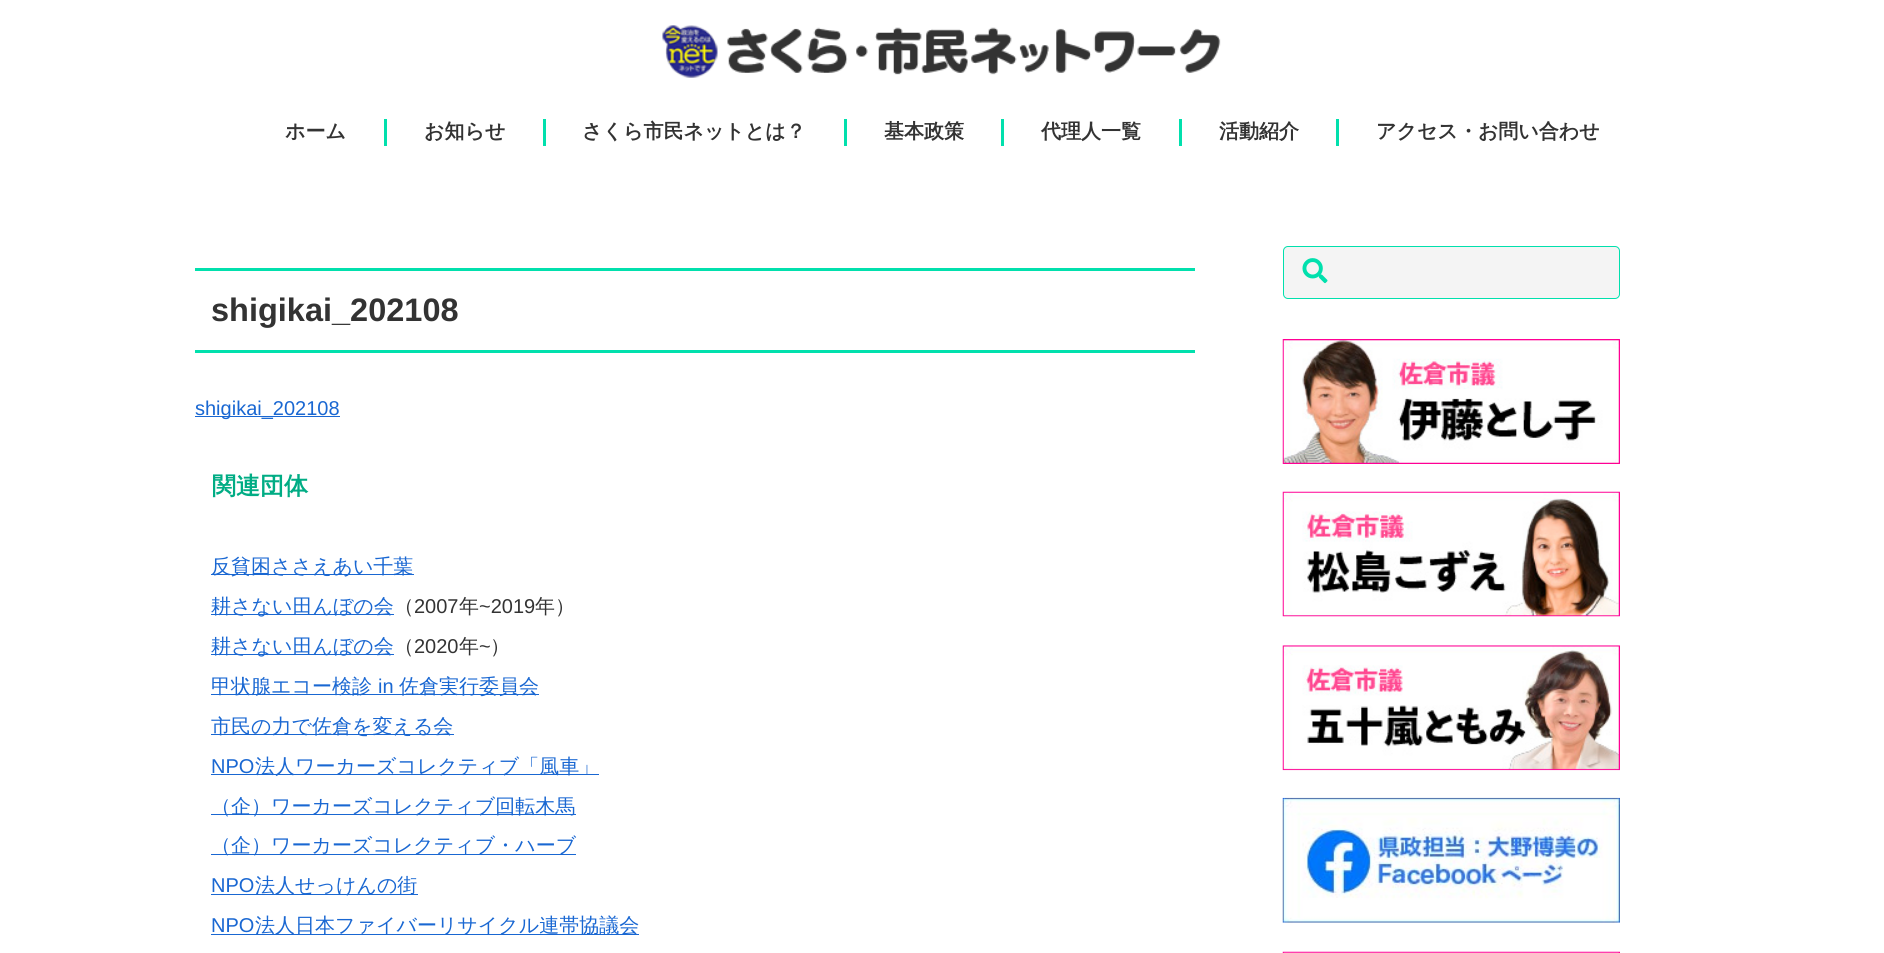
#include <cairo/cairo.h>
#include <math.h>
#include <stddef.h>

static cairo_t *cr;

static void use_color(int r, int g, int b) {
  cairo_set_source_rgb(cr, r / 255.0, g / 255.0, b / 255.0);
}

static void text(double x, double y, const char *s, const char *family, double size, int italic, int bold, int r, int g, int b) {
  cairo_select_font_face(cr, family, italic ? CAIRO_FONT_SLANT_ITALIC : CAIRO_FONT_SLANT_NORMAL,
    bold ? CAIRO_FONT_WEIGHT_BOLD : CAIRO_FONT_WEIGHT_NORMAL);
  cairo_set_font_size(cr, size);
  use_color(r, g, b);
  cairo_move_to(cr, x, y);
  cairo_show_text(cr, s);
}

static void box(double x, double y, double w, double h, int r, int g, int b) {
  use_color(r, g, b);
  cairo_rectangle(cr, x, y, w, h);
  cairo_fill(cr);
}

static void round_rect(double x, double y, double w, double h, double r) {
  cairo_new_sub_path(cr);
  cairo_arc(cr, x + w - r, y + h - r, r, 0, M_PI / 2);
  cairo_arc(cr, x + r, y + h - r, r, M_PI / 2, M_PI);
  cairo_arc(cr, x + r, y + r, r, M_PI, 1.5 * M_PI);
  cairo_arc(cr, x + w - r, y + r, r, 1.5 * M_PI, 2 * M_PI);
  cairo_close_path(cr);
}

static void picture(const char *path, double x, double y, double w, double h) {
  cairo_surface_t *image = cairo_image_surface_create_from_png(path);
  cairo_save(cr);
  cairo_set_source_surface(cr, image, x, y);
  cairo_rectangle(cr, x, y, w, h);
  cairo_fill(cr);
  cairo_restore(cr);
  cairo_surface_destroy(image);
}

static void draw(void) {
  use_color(255, 255, 255);
  cairo_paint(cr);
  picture("img_01.png", 662, 25, 559, 53);
  box(384, 119, 3, 27, 1, 224, 173);
  box(543, 119, 3, 27, 1, 224, 173);
  box(844, 119, 3, 27, 1, 224, 173);
  box(1001, 119, 3, 27, 1, 224, 173);
  box(1179, 119, 3, 27, 1, 224, 173);
  box(1336, 119, 3, 27, 1, 224, 173);
  box(195, 268, 1000, 3, 1, 224, 173);
  box(195, 350, 1000, 3, 1, 224, 173);
  box(195, 416, 145, 1, 25, 103, 210);
  box(211, 574, 203, 1, 25, 103, 210);
  box(211, 614, 183, 1, 25, 103, 210);
  box(211, 654, 183, 1, 25, 103, 210);
  box(211, 694, 328, 1, 25, 103, 210);
  box(211, 734, 243, 1, 25, 103, 210);
  box(211, 774, 388, 1, 25, 103, 210);
  box(211, 814, 365, 1, 25, 103, 210);
  box(211, 854, 365, 1, 25, 103, 210);
  box(211, 894, 207, 1, 25, 103, 210);
  box(211, 934, 428, 1, 25, 103, 210);
  use_color(244, 244, 244);
  round_rect(1283.5, 246.5, 336, 52, 4.5);
  cairo_fill_preserve(cr);
  use_color(1, 224, 173);
  cairo_set_line_width(cr, 1);
  cairo_stroke(cr);
  picture("img_02.png", 1302, 258, 26, 26);
  picture("img_03.png", 1282, 339, 338, 125);
  picture("img_04.png", 1282, 491, 338, 126);
  picture("img_05.png", 1282, 645, 338, 126);
  picture("img_06.png", 1282, 797, 338, 126);
  picture("img_07.png", 1282, 951, 338, 2);
  text(285, 138, "ホーム", "WenQuanYi Zen Hei", 20, 0, 1, 51, 51, 51);
  text(424, 138, "お知らせ", "WenQuanYi Zen Hei", 20, 0, 1, 51, 51, 51);
  text(582, 138, "さくら市民ネットとは？", "WenQuanYi Zen Hei", 20, 0, 1, 51, 51, 51);
  text(884, 138, "基本政策", "WenQuanYi Zen Hei", 20, 0, 1, 51, 51, 51);
  text(1041, 138, "代理人一覧", "WenQuanYi Zen Hei", 20, 0, 1, 51, 51, 51);
  text(1219, 138, "活動紹介", "WenQuanYi Zen Hei", 20, 0, 1, 51, 51, 51);
  text(1376, 138, "アクセス・お問い合わせ", "WenQuanYi Zen Hei", 20, 0, 1, 51, 51, 51);
  text(211, 321, "shigikai_202108", "Liberation Sans", 32.5, 0, 1, 51, 51, 51);
  text(195, 415, "shigikai_202108", "Liberation Sans", 20, 0, 0, 25, 103, 210);
  text(212, 494, "関連団体", "WenQuanYi Zen Hei", 24, 0, 1, 0, 172, 132);
  text(211, 573, "反貧困ささえあい千葉", "WenQuanYi Zen Hei Medium", 20, 0, 0, 25, 103, 210);
  text(211, 613, "耕さない田んぼの会", "WenQuanYi Zen Hei Medium", 20, 0, 0, 25, 103, 210);
  text(394, 613, "（", "WenQuanYi Zen Hei Medium", 20, 0, 0, 51, 51, 51);
  text(414, 613, "2007", "Liberation Sans", 20, 0, 0, 51, 51, 51);
  text(459, 613, "年", "WenQuanYi Zen Hei Medium", 20, 0, 0, 51, 51, 51);
  text(479, 613, "~2019", "Liberation Sans", 20, 0, 0, 51, 51, 51);
  text(535, 613, "年）", "WenQuanYi Zen Hei Medium", 20, 0, 0, 51, 51, 51);
  text(211, 653, "耕さない田んぼの会", "WenQuanYi Zen Hei Medium", 20, 0, 0, 25, 103, 210);
  text(394, 653, "（", "WenQuanYi Zen Hei Medium", 20, 0, 0, 51, 51, 51);
  text(414, 653, "2020", "Liberation Sans", 20, 0, 0, 51, 51, 51);
  text(459, 653, "年", "WenQuanYi Zen Hei Medium", 20, 0, 0, 51, 51, 51);
  text(479, 653, "~", "Liberation Sans", 20, 0, 0, 51, 51, 51);
  text(490, 653, "）", "WenQuanYi Zen Hei Medium", 20, 0, 0, 51, 51, 51);
  text(211, 693, "甲状腺エコー検診", "WenQuanYi Zen Hei Medium", 20, 0, 0, 25, 103, 210);
  text(378, 693, "in", "Liberation Sans", 20, 0, 0, 25, 103, 210);
  text(399, 693, "佐倉実行委員会", "WenQuanYi Zen Hei Medium", 20, 0, 0, 25, 103, 210);
  text(211, 733, "市民の力で佐倉を変える会", "WenQuanYi Zen Hei Medium", 20, 0, 0, 25, 103, 210);
  text(211, 773, "NPO", "Liberation Sans", 20, 0, 0, 25, 103, 210);
  text(255, 773, "法人ワーカーズコレクティブ「風車」", "WenQuanYi Zen Hei Medium", 20, 0, 0, 25, 103, 210);
  text(211, 813, "（企）ワーカーズコレクティブ回転木馬", "WenQuanYi Zen Hei Medium", 20, 0, 0, 25, 103, 210);
  text(211, 852, "（企）ワーカーズコレクティブ・ハーブ", "WenQuanYi Zen Hei Medium", 20, 0, 0, 25, 103, 210);
  text(211, 892, "NPO", "Liberation Sans", 20, 0, 0, 25, 103, 210);
  text(255, 892, "法人せっけんの街", "WenQuanYi Zen Hei Medium", 20, 0, 0, 25, 103, 210);
  text(211, 932, "NPO", "Liberation Sans", 20, 0, 0, 25, 103, 210);
  text(255, 932, "法人日本ファイバーリサイクル連帯協議会", "WenQuanYi Zen Hei Medium", 20, 0, 0, 25, 103, 210);
}

int main(void) {
  cairo_surface_t *surface = cairo_image_surface_create(CAIRO_FORMAT_RGB24, 1884, 953);
  cr = cairo_create(surface);
  cairo_font_options_t *options = cairo_font_options_create();
  cairo_font_options_set_hint_metrics(options, CAIRO_HINT_METRICS_OFF);
  cairo_font_options_set_hint_style(options, CAIRO_HINT_STYLE_NONE);
  cairo_set_font_options(cr, options);
  cairo_set_miter_limit(cr, 4);
  draw();
  cairo_surface_write_to_png(surface, "out.png");
  cairo_font_options_destroy(options);
  cairo_destroy(cr);
  cairo_surface_destroy(surface);
  return 0;
}
